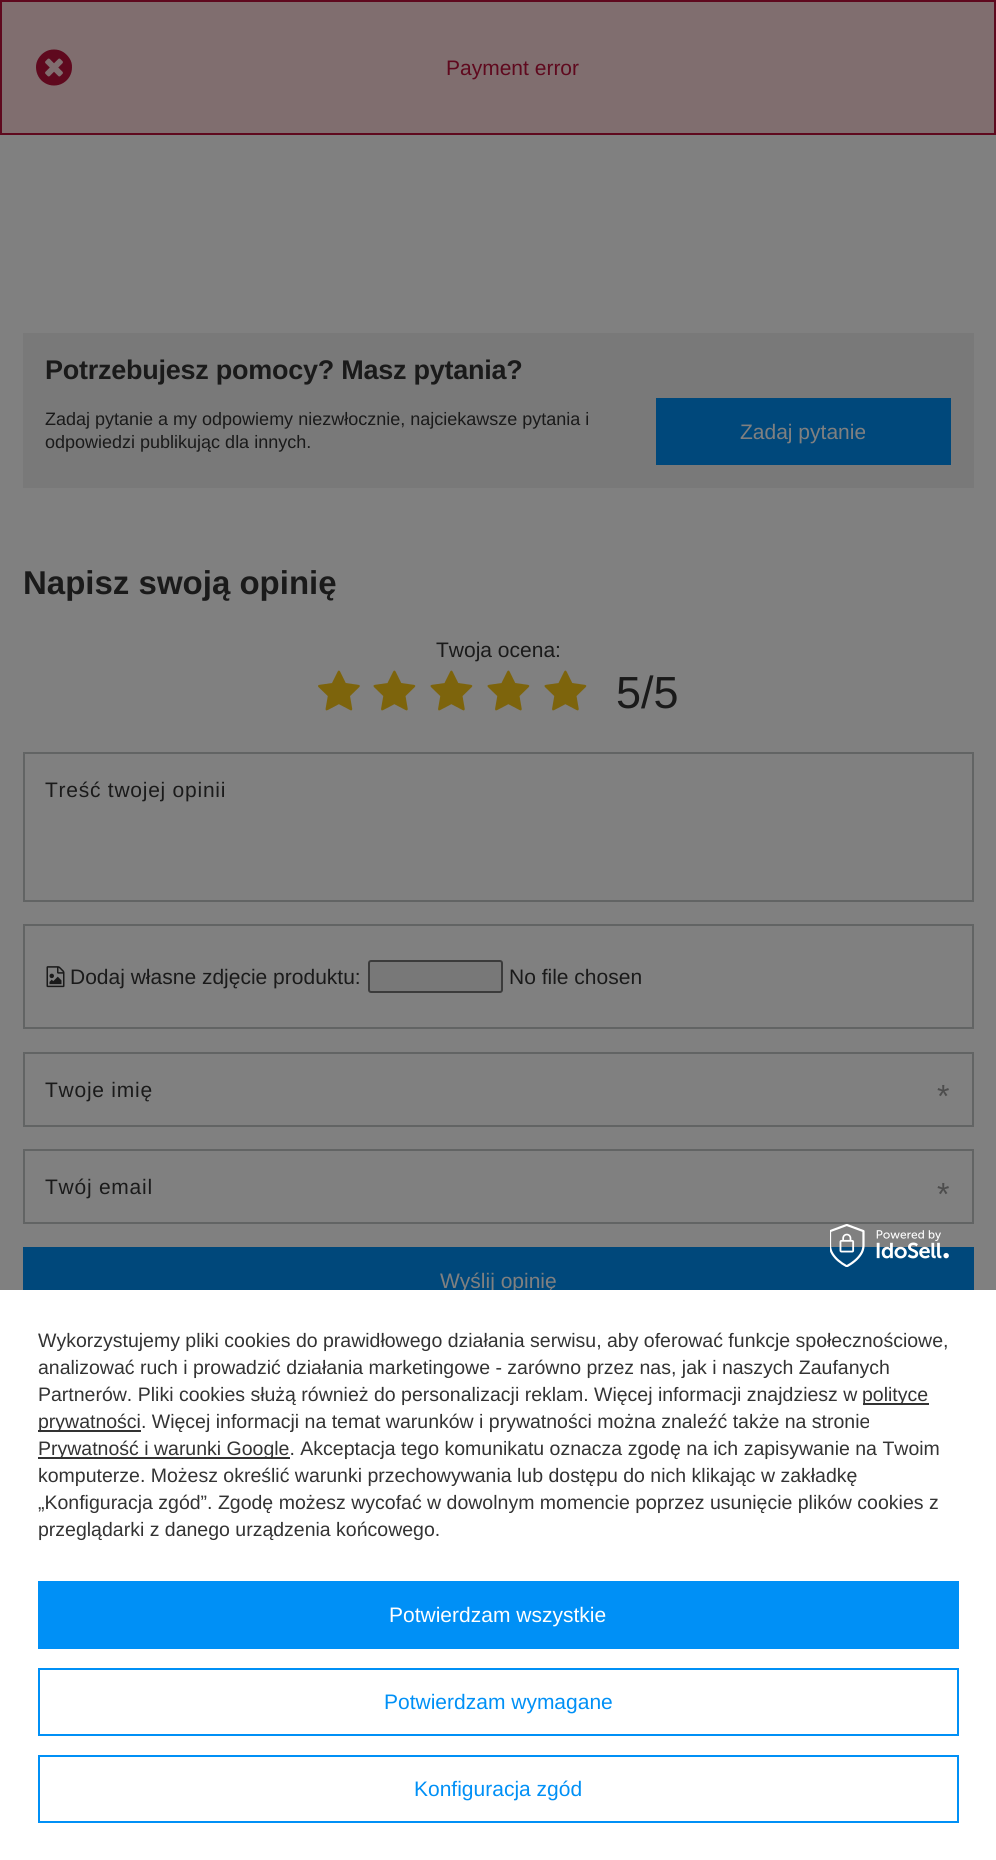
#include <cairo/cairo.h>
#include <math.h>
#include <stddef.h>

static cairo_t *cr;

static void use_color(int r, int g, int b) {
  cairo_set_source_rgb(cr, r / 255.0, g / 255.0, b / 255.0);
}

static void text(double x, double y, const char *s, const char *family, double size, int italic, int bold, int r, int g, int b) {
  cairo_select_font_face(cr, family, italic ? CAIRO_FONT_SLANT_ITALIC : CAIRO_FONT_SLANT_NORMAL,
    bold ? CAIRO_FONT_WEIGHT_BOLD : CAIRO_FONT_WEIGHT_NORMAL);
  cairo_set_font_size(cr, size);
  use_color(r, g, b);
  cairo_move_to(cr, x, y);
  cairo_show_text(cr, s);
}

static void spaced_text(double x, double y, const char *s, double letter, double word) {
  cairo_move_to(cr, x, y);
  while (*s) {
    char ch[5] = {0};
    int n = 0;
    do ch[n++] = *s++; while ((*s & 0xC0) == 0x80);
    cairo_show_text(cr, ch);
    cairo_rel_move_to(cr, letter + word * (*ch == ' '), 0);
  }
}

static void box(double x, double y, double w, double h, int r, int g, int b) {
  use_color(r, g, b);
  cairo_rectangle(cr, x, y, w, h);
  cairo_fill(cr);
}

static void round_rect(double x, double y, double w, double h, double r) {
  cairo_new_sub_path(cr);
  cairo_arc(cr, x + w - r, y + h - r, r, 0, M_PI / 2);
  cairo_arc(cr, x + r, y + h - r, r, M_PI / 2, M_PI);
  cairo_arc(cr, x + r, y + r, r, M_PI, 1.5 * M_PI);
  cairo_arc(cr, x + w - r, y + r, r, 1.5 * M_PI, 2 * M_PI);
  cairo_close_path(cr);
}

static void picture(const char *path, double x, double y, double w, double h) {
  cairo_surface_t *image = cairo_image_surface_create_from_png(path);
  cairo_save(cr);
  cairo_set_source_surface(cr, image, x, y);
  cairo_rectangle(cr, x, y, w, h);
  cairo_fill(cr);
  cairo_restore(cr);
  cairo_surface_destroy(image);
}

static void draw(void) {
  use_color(128, 128, 128);
  cairo_paint(cr);
  use_color(128, 110, 111);
  cairo_rectangle(cr, 1, 1, 994, 133);
  cairo_fill_preserve(cr);
  use_color(95, 9, 30);
  cairo_stroke(cr);
  picture("img_01.png", 36, 49, 36, 37);
  box(23, 333, 951, 155, 121, 121, 121);
  box(656, 398, 295, 67, 0, 72, 123);
  picture("img_02.png", 318, 670, 42, 41);
  picture("img_03.png", 373, 670, 43, 41);
  picture("img_03.png", 430, 670, 43, 41);
  picture("img_03.png", 487, 670, 43, 41);
  picture("img_03.png", 544, 670, 43, 41);
  cairo_rectangle(cr, 24, 753, 949, 148);
  use_color(98, 100, 100);
  cairo_stroke(cr);
  cairo_rectangle(cr, 24, 925, 949, 103);
  cairo_stroke(cr);
  picture("img_04.png", 46, 966, 19, 22);
  use_color(120, 120, 120);
  round_rect(369, 961, 133, 31, 2);
  cairo_fill_preserve(cr);
  use_color(59, 59, 59);
  cairo_stroke(cr);
  cairo_rectangle(cr, 24, 1053, 949, 73);
  use_color(98, 100, 100);
  cairo_stroke(cr);
  cairo_rectangle(cr, 24, 1150, 949, 73);
  cairo_stroke(cr);
  box(23, 1247, 951, 43, 0, 72, 123);
  picture("img_05.png", 830, 1224, 119, 43);
  text(446, 75, "Payment error", "Liberation Sans", 21, 0, 0, 95, 9, 30);
  cairo_select_font_face(cr, "Liberation Sans", CAIRO_FONT_SLANT_NORMAL, CAIRO_FONT_WEIGHT_BOLD);
  cairo_set_font_size(cr, 27);
  use_color(26, 26, 26);
  spaced_text(45, 379, "Potrzebujesz pomocy? Masz pytania?", -0.25, 0);
  text(45, 425, "Zadaj pytanie a my odpowiemy niezwłocznie, najciekawsze pytania i", "Liberation Sans", 18, 0, 0, 26, 26, 26);
  text(45, 448, "odpowiedzi publikując dla innych.", "Liberation Sans", 18, 0, 0, 26, 26, 26);
  text(740, 439, "Zadaj pytanie", "Liberation Sans", 21, 0, 0, 128, 128, 128);
  text(23, 594, "Napisz swoją opinię", "Liberation Sans", 33, 0, 1, 26, 26, 26);
  text(436, 657, "Twoja ocena:", "Liberation Sans", 21, 0, 0, 26, 26, 26);
  text(616, 708, "5/5", "Liberation Sans", 45, 0, 0, 26, 26, 26);
  cairo_set_font_size(cr, 21);
  spaced_text(45, 797, "Treść twojej opinii", 0.75, 0);
  text(70, 984, "Dodaj własne zdjęcie produktu:", "Liberation Sans", 21, 0, 0, 26, 26, 26);
  text(509, 984, "No file chosen", "Liberation Sans", 21, 0, 0, 26, 26, 26);
  spaced_text(45, 1097, "Twoje imię", 0.75, 0);
  text(937, 1107, "*", "Liberation Sans", 32, 0, 0, 77, 77, 77);
  cairo_set_font_size(cr, 21);
  use_color(26, 26, 26);
  spaced_text(45, 1194, "Twój email", 0.75, 0);
  text(937, 1205, "*", "Liberation Sans", 32, 0, 0, 77, 77, 77);
  text(440, 1288, "Wyślij opinię", "Liberation Sans", 21, 0, 0, 128, 128, 128);
  box(0, 1290, 996, 570, 255, 255, 255);
  text(38, 1347, "Wykorzystujemy pliki cookies do prawidłowego działania serwisu, aby oferować funkcje społecznościowe,", "Liberation Sans", 19.5, 0, 0, 51, 51, 51);
  text(38, 1374, "analizować ruch i prowadzić działania marketingowe - zarówno przez nas, jak i naszych Zaufanych", "Liberation Sans", 19.5, 0, 0, 51, 51, 51);
  text(38, 1401, "Partnerów. Pliki cookies służą również do personalizacji reklam. Więcej informacji znajdziesz w", "Liberation Sans", 19.5, 0, 0, 51, 51, 51);
  box(863, 1403, 66, 2, 51, 51, 51);
  text(862, 1401, "polityce", "Liberation Sans", 19.5, 0, 0, 51, 51, 51);
  box(38, 1430, 103, 2, 51, 51, 51);
  text(38, 1428, "prywatności. Więcej informacji na temat warunków i prywatności można znaleźć także na stronie", "Liberation Sans", 19.5, 0, 0, 51, 51, 51);
  box(38, 1457, 252, 2, 51, 51, 51);
  text(38, 1455, "Prywatność i warunki Google. Akceptacja tego komunikatu oznacza zgodę na ich zapisywanie na Twoim", "Liberation Sans", 19.5, 0, 0, 51, 51, 51);
  text(38, 1482, "komputerze. Możesz określić warunki przechowywania lub dostępu do nich klikając w zakładkę", "Liberation Sans", 19.5, 0, 0, 51, 51, 51);
  text(38, 1509, "„Konfiguracja zgód”. Zgodę możesz wycofać w dowolnym momencie poprzez usunięcie plików cookies z", "Liberation Sans", 19.5, 0, 0, 51, 51, 51);
  text(38, 1536, "przeglądarki z danego urządzenia końcowego.", "Liberation Sans", 19.5, 0, 0, 51, 51, 51);
  box(38, 1581, 921, 68, 0, 144, 246);
  text(389, 1622, "Potwierdzam wszystkie", "Liberation Sans", 21, 0, 0, 255, 255, 255);
  cairo_rectangle(cr, 39, 1669, 919, 66);
  use_color(0, 144, 246);
  cairo_stroke(cr);
  text(384, 1709, "Potwierdzam wymagane", "Liberation Sans", 21, 0, 0, 0, 144, 246);
  cairo_rectangle(cr, 39, 1756, 919, 66);
  cairo_stroke(cr);
  text(414, 1796, "Konfiguracja zgód", "Liberation Sans", 21, 0, 0, 0, 144, 246);
}

int main(void) {
  cairo_surface_t *surface = cairo_image_surface_create(CAIRO_FORMAT_RGB24, 996, 1860);
  cr = cairo_create(surface);
  cairo_font_options_t *options = cairo_font_options_create();
  cairo_font_options_set_hint_metrics(options, CAIRO_HINT_METRICS_OFF);
  cairo_font_options_set_hint_style(options, CAIRO_HINT_STYLE_NONE);
  cairo_set_font_options(cr, options);
  cairo_set_miter_limit(cr, 4);
  draw();
  cairo_surface_write_to_png(surface, "out.png");
  cairo_font_options_destroy(options);
  cairo_destroy(cr);
  cairo_surface_destroy(surface);
  return 0;
}
